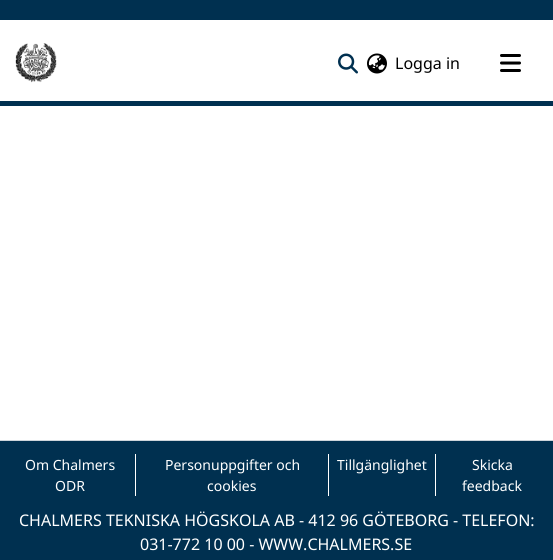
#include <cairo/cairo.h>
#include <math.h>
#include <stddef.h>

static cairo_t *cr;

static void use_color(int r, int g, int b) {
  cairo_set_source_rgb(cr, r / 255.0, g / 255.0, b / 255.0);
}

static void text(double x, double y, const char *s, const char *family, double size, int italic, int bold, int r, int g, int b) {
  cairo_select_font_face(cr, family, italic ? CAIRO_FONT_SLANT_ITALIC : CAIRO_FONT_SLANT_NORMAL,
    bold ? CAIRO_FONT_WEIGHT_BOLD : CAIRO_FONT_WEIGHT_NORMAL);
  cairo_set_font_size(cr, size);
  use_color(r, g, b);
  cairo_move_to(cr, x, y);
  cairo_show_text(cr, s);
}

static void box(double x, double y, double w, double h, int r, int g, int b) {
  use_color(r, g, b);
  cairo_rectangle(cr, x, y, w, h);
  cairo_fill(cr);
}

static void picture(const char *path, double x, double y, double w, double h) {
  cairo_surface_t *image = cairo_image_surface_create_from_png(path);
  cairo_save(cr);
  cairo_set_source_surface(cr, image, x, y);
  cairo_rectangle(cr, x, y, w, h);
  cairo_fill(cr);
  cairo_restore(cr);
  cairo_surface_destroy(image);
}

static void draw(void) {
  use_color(255, 255, 255);
  cairo_paint(cr);
  box(0, 0, 553, 20, 0, 48, 80);
  box(0, 101, 553, 5, 0, 48, 80);
  picture("img_01.png", 15, 43, 42, 40);
  picture("img_02.png", 338, 53, 20, 21);
  picture("img_03.png", 367, 53, 20, 21);
  picture("img_04.png", 500, 54, 21, 18);
  box(0, 441, 553, 119, 0, 48, 80);
  box(0, 440, 553, 1, 206, 212, 218);
  box(135, 454, 1, 42, 255, 255, 255);
  box(328, 454, 1, 42, 255, 255, 255);
  box(435, 454, 1, 42, 255, 255, 255);
  text(395, 69, "Logga in", "Noto Sans", 16, 0, 0, 0, 0, 0);
  text(25, 470, "Om Chalmers", "Noto Sans", 14, 0, 0, 255, 255, 255);
  text(55, 491, "ODR", "Noto Sans", 14, 0, 0, 255, 255, 255);
  text(165, 470, "Personuppgifter och", "Noto Sans", 14, 0, 0, 255, 255, 255);
  text(207, 491, "cookies", "Noto Sans", 14, 0, 0, 255, 255, 255);
  text(337, 470, "Tillgänglighet", "Noto Sans", 14, 0, 0, 255, 255, 255);
  text(472, 470, "Skicka", "Noto Sans", 14, 0, 0, 255, 255, 255);
  text(462, 491, "feedback", "Noto Sans", 14, 0, 0, 255, 255, 255);
  text(19, 526, "CHALMERS TEKNISKA HÖGSKOLA AB - 412 96 GÖTEBORG - TELEFON:", "Noto Sans", 16, 0, 0, 255, 255, 255);
  text(140, 550, "031-772 10 00 - WWW.CHALMERS.SE", "Noto Sans", 16, 0, 0, 255, 255, 255);
}

int main(void) {
  cairo_surface_t *surface = cairo_image_surface_create(CAIRO_FORMAT_RGB24, 553, 560);
  cr = cairo_create(surface);
  cairo_font_options_t *options = cairo_font_options_create();
  cairo_font_options_set_hint_metrics(options, CAIRO_HINT_METRICS_OFF);
  cairo_font_options_set_hint_style(options, CAIRO_HINT_STYLE_NONE);
  cairo_set_font_options(cr, options);
  cairo_set_miter_limit(cr, 4);
  draw();
  cairo_surface_write_to_png(surface, "out.png");
  cairo_font_options_destroy(options);
  cairo_destroy(cr);
  cairo_surface_destroy(surface);
  return 0;
}
